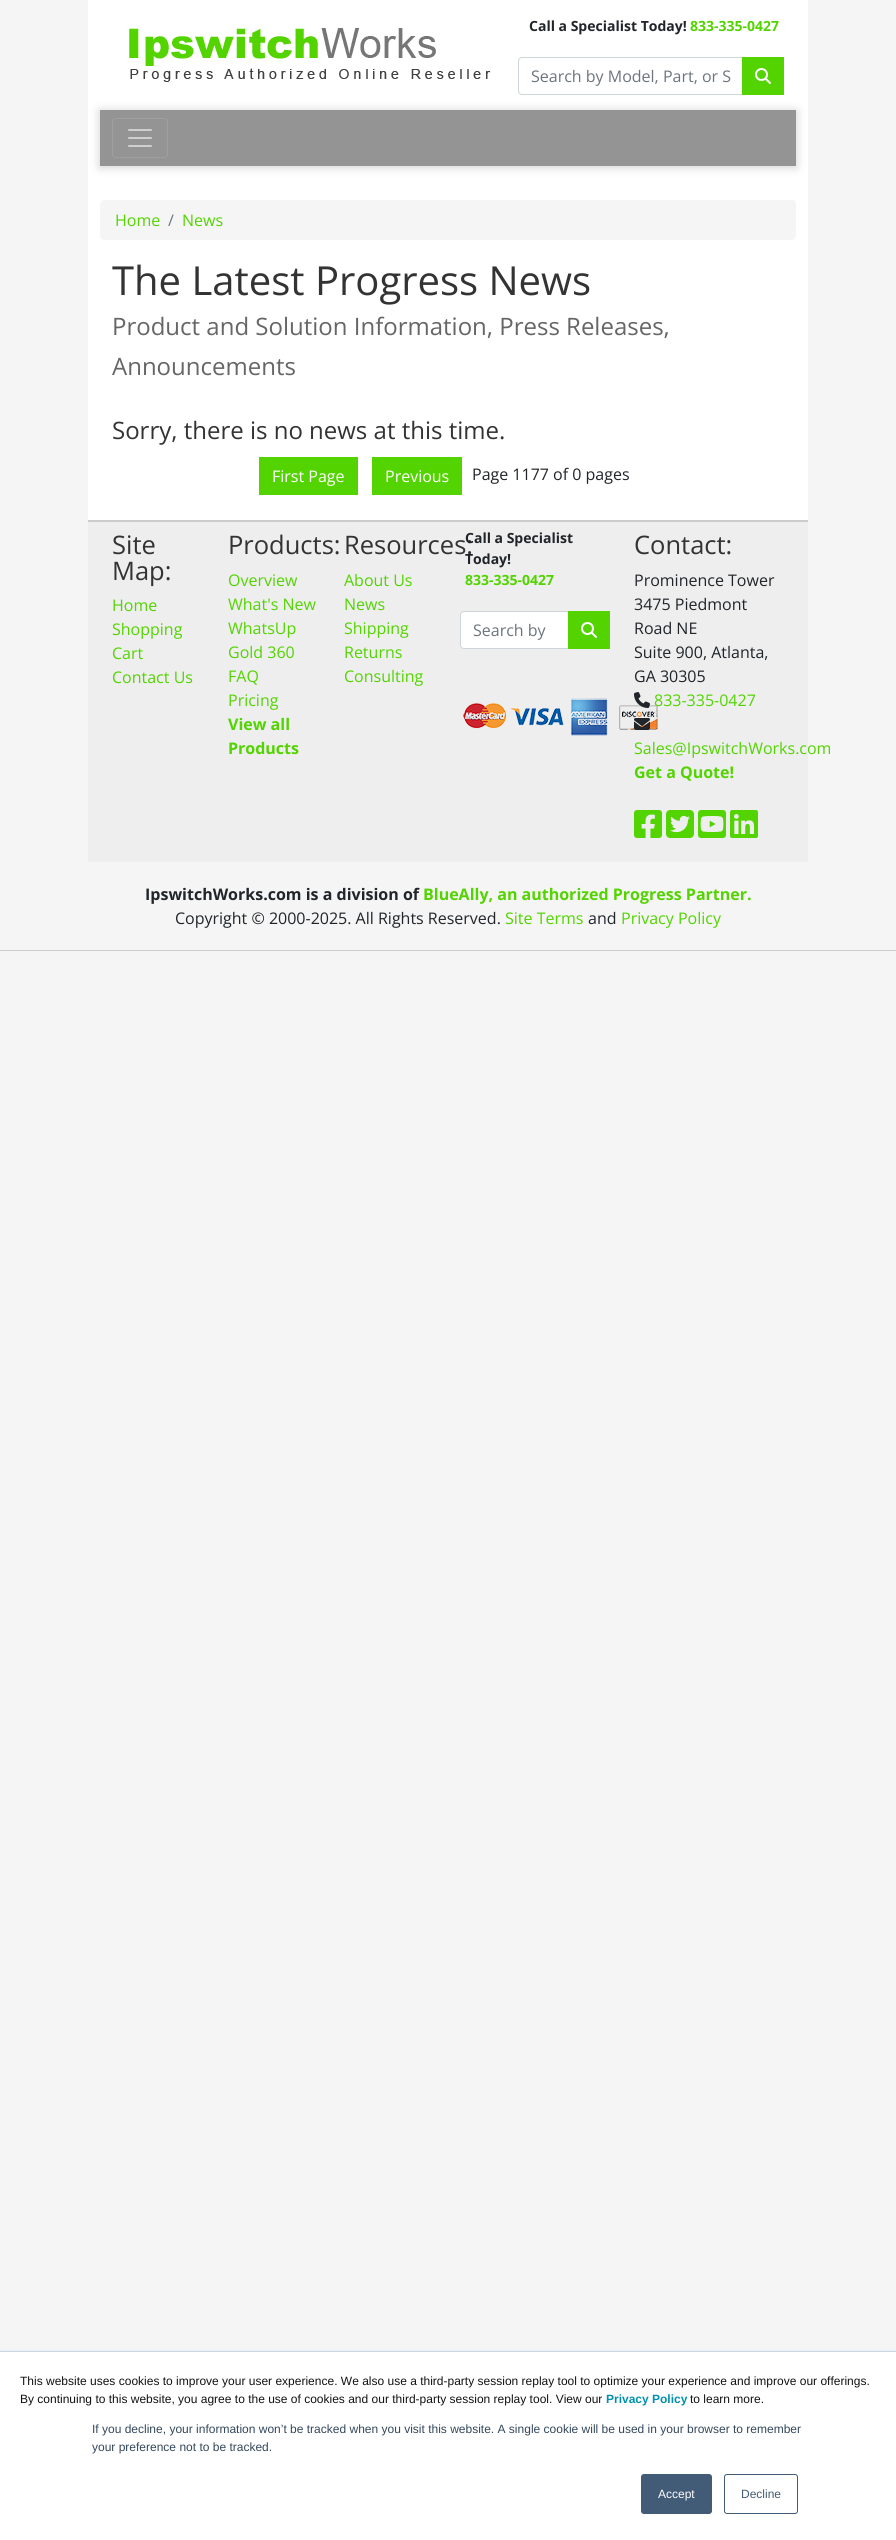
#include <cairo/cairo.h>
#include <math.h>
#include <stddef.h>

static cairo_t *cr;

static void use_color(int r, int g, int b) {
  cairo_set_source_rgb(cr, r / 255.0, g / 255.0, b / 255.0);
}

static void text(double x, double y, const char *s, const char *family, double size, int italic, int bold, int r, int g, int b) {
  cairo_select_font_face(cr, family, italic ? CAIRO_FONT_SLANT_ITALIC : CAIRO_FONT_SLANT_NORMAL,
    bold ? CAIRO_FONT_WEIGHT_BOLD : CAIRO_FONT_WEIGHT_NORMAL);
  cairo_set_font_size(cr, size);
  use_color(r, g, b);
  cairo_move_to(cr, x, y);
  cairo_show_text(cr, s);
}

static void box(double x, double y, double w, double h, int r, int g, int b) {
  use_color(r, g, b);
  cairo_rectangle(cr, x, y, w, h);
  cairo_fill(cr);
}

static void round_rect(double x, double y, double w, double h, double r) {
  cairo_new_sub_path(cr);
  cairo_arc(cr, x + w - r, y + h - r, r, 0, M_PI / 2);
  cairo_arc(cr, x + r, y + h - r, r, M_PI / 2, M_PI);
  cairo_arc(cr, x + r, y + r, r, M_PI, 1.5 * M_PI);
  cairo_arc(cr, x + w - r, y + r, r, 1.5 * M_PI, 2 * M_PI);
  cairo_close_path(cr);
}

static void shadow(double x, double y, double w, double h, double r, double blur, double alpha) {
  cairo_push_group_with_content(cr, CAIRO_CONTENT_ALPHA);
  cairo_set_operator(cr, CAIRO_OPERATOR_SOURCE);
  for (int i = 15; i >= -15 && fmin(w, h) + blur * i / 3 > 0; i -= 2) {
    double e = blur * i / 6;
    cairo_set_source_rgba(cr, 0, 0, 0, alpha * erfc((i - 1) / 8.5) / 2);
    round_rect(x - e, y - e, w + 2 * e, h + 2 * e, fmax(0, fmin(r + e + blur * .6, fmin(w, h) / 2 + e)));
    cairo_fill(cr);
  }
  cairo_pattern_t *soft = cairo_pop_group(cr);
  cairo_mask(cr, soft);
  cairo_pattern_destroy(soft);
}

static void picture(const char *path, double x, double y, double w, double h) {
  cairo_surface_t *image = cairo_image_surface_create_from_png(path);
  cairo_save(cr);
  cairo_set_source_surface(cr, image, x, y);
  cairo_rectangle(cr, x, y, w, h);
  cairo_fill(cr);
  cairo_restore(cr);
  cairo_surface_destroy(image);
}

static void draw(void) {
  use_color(245, 245, 245);
  cairo_paint(cr);
  box(88, 0, 720, 520, 255, 255, 255);
  picture("img_01.png", 129, 28, 362, 54);
  cairo_new_path(cr);
  cairo_move_to(cr, 522, 57.5);
  cairo_line_to(cr, 742.5, 57.5);
  cairo_line_to(cr, 742.5, 94.5);
  cairo_line_to(cr, 522, 94.5);
  cairo_curve_to(cr, 520, 94.5, 518.5, 93, 518.5, 91);
  cairo_line_to(cr, 518.5, 61);
  cairo_curve_to(cr, 518.5, 59, 520, 57.5, 522, 57.5);
  cairo_close_path(cr);
  use_color(206, 212, 218);
  cairo_set_line_width(cr, 1);
  cairo_stroke(cr);
  box(742, 57, 42, 38, 83, 212, 0);
  picture("img_02.png", 755, 68, 16, 16);
  use_color(0, 0, 0);
  shadow(100, 111, 696, 56, 0, 5, 0.2);
  box(100, 110, 696, 56, 148, 148, 148);
  round_rect(112.5, 118.5, 55, 39, 3.5);
  use_color(159, 159, 159);
  cairo_stroke(cr);
  picture("img_03.png", 128, 129, 24, 18);
  use_color(245, 245, 245);
  round_rect(100, 200, 696, 40, 4);
  cairo_fill(cr);
  box(259, 457, 99, 38, 83, 212, 0);
  box(372, 457, 90, 38, 83, 212, 0);
  box(88, 522, 720, 340, 238, 238, 238);
  box(88, 520, 720, 2, 204, 204, 204);
  use_color(255, 255, 255);
  cairo_new_path(cr);
  cairo_move_to(cr, 464, 611.5);
  cairo_line_to(cr, 568.5, 611.5);
  cairo_line_to(cr, 568.5, 648.5);
  cairo_line_to(cr, 464, 648.5);
  cairo_curve_to(cr, 462, 648.5, 460.5, 647, 460.5, 645);
  cairo_line_to(cr, 460.5, 615);
  cairo_curve_to(cr, 460.5, 613, 462, 611.5, 464, 611.5);
  cairo_close_path(cr);
  cairo_fill_preserve(cr);
  use_color(206, 212, 218);
  cairo_stroke(cr);
  box(568, 611, 42, 38, 83, 212, 0);
  picture("img_02.png", 581, 622, 16, 16);
  picture("img_04.png", 463, 698, 195, 38);
  picture("img_05.png", 634, 692, 16, 16);
  picture("img_06.png", 634, 718, 16, 12);
  picture("img_07.png", 634, 810, 28, 28);
  picture("img_08.png", 666, 810, 28, 28);
  picture("img_09.png", 698, 810, 28, 28);
  picture("img_10.png", 730, 810, 28, 28);
  box(0, 950, 896, 1, 204, 204, 204);
  use_color(234, 240, 246);
  shadow(0, 2350, 896, 189, 0, 1.5, 1);
  box(0, 2352, 896, 188, 255, 255, 255);
  box(0, 2351, 896, 1, 203, 214, 226);
  use_color(66, 91, 118);
  round_rect(641.5, 2474.5, 70, 39, 2.5);
  cairo_fill_preserve(cr);
  cairo_stroke(cr);
  round_rect(724.5, 2474.5, 73, 39, 2.5);
  cairo_stroke(cr);
  text(529, 31, "Call a Specialist Today!", "Open Sans", 14, 0, 1, 33, 37, 41);
  text(690, 31, "833-335-0427", "Open Sans", 14, 0, 1, 83, 212, 0);
  text(531, 82, "Search by Model, Part, or S", "Open Sans", 16, 0, 0, 108, 117, 125);
  text(115, 226, "Home", "Open Sans", 16, 0, 0, 83, 212, 0);
  text(168, 226, "/", "Open Sans", 16, 0, 0, 108, 117, 125);
  text(182, 226, "News", "Open Sans", 16, 0, 0, 83, 212, 0);
  text(112, 295, "The Latest Progress News", "Open Sans", 40, 0, 0, 51, 51, 51);
  text(112, 335, "Product and Solution Information, Press Releases,", "Open Sans", 24, 0, 0, 102, 102, 102);
  text(112, 375, "Announcements", "Open Sans", 24, 0, 0, 102, 102, 102);
  text(112, 439, "Sorry, there is no news at this time.", "Open Sans", 24, 0, 0, 51, 51, 51);
  text(272, 482, "First Page", "Open Sans", 16, 0, 0, 255, 255, 255);
  text(385, 482, "Previous", "Open Sans", 16, 0, 0, 255, 255, 255);
  text(472, 480, "Page 1177 of 0 pages", "Open Sans", 16, 0, 0, 33, 37, 41);
  text(112, 554, "Site", "Open Sans", 25.5, 0, 0, 51, 51, 51);
  text(112, 580, "Map:", "Open Sans", 25.5, 0, 0, 51, 51, 51);
  text(112, 611, "Home", "Open Sans", 16, 0, 0, 83, 212, 0);
  text(112, 635, "Shopping", "Open Sans", 16, 0, 0, 83, 212, 0);
  text(112, 659, "Cart", "Open Sans", 16, 0, 0, 83, 212, 0);
  text(112, 683, "Contact Us", "Open Sans", 16, 0, 0, 83, 212, 0);
  text(228, 554, "Products:", "Open Sans", 25.5, 0, 0, 51, 51, 51);
  text(228, 586, "Overview", "Open Sans", 16, 0, 0, 83, 212, 0);
  text(228, 610, "What's New", "Open Sans", 16, 0, 0, 83, 212, 0);
  text(228, 634, "WhatsUp", "Open Sans", 16, 0, 0, 83, 212, 0);
  text(228, 658, "Gold 360", "Open Sans", 16, 0, 0, 83, 212, 0);
  text(228, 682, "FAQ", "Open Sans", 16, 0, 0, 83, 212, 0);
  text(228, 706, "Pricing", "Open Sans", 16, 0, 0, 83, 212, 0);
  text(228, 730, "View all", "Open Sans", 16, 0, 1, 83, 212, 0);
  text(228, 754, "Products", "Open Sans", 16, 0, 1, 83, 212, 0);
  text(344, 554, "Resources:", "Open Sans", 25.5, 0, 0, 51, 51, 51);
  text(344, 586, "About Us", "Open Sans", 16, 0, 0, 83, 212, 0);
  text(344, 610, "News", "Open Sans", 16, 0, 0, 83, 212, 0);
  text(344, 634, "Shipping", "Open Sans", 16, 0, 0, 83, 212, 0);
  text(344, 658, "Returns", "Open Sans", 16, 0, 0, 83, 212, 0);
  text(344, 682, "Consulting", "Open Sans", 16, 0, 0, 83, 212, 0);
  text(465, 543, "Call a Specialist", "Open Sans", 14, 0, 1, 33, 37, 41);
  text(465, 564, "Today!", "Open Sans", 14, 0, 1, 33, 37, 41);
  text(465, 585, "833-335-0427", "Open Sans", 14, 0, 1, 83, 212, 0);
  text(473, 636, "Search by", "Open Sans", 16, 0, 0, 108, 117, 125);
  text(634, 554, "Contact:", "Open Sans", 25.5, 0, 0, 51, 51, 51);
  text(634, 586, "Prominence Tower", "Open Sans", 16, 0, 0, 33, 37, 41);
  text(634, 610, "3475 Piedmont", "Open Sans", 16, 0, 0, 33, 37, 41);
  text(634, 634, "Road NE", "Open Sans", 16, 0, 0, 33, 37, 41);
  text(634, 658, "Suite 900, Atlanta,", "Open Sans", 16, 0, 0, 33, 37, 41);
  text(634, 682, "GA 30305", "Open Sans", 16, 0, 0, 33, 37, 41);
  text(654, 706, "833-335-0427", "Open Sans", 16, 0, 0, 83, 212, 0);
  text(634, 754, "Sales@IpswitchWorks.com", "Open Sans", 16, 0, 0, 83, 212, 0);
  text(634, 778, "Get a Quote!", "Open Sans", 16, 0, 1, 83, 212, 0);
  text(145, 900, "IpswitchWorks.com is a division of", "Open Sans", 16, 0, 1, 33, 37, 41);
  text(423, 900, "BlueAlly, an authorized Progress Partner.", "Open Sans", 16, 0, 1, 83, 212, 0);
  text(175, 924, "Copyright © 2000-2025. All Rights Reserved.", "Open Sans", 16, 0, 0, 33, 37, 41);
  text(505, 924, "Site Terms", "Open Sans", 16, 0, 0, 83, 212, 0);
  text(588, 924, "and", "Open Sans", 16, 0, 0, 33, 37, 41);
  text(621, 924, "Privacy Policy", "Open Sans", 16, 0, 0, 83, 212, 0);
  text(20, 2385, "This website uses cookies to improve your user experience. We also use a third-party session replay tool to optimize your experience and improve our offerings.", "Liberation Sans", 12, 0, 0, 18, 18, 18);
  text(20, 2403, "By continuing to this website, you agree to the use of cookies and our third-party session replay tool. View our", "Liberation Sans", 12, 0, 0, 18, 18, 18);
  text(606, 2403, "Privacy Policy", "Liberation Sans", 12, 0, 1, 0, 145, 174);
  text(690, 2403, "to learn more.", "Liberation Sans", 12, 0, 0, 18, 18, 18);
  text(92, 2433, "If you decline, your information won’t be tracked when you visit this website. A single cookie will be used in your browser to remember", "Liberation Sans", 12, 0, 0, 51, 71, 91);
  text(92, 2451, "your preference not to be tracked.", "Liberation Sans", 12, 0, 0, 51, 71, 91);
  text(658, 2498, "Accept", "Liberation Sans", 12, 0, 0, 255, 255, 255);
  text(741, 2498, "Decline", "Liberation Sans", 12, 0, 0, 66, 91, 118);
}

int main(void) {
  cairo_surface_t *surface = cairo_image_surface_create(CAIRO_FORMAT_RGB24, 896, 2540);
  cr = cairo_create(surface);
  cairo_font_options_t *options = cairo_font_options_create();
  cairo_font_options_set_hint_metrics(options, CAIRO_HINT_METRICS_OFF);
  cairo_font_options_set_hint_style(options, CAIRO_HINT_STYLE_NONE);
  cairo_set_font_options(cr, options);
  cairo_set_miter_limit(cr, 4);
  draw();
  cairo_surface_write_to_png(surface, "out.png");
  cairo_font_options_destroy(options);
  cairo_destroy(cr);
  cairo_surface_destroy(surface);
  return 0;
}
